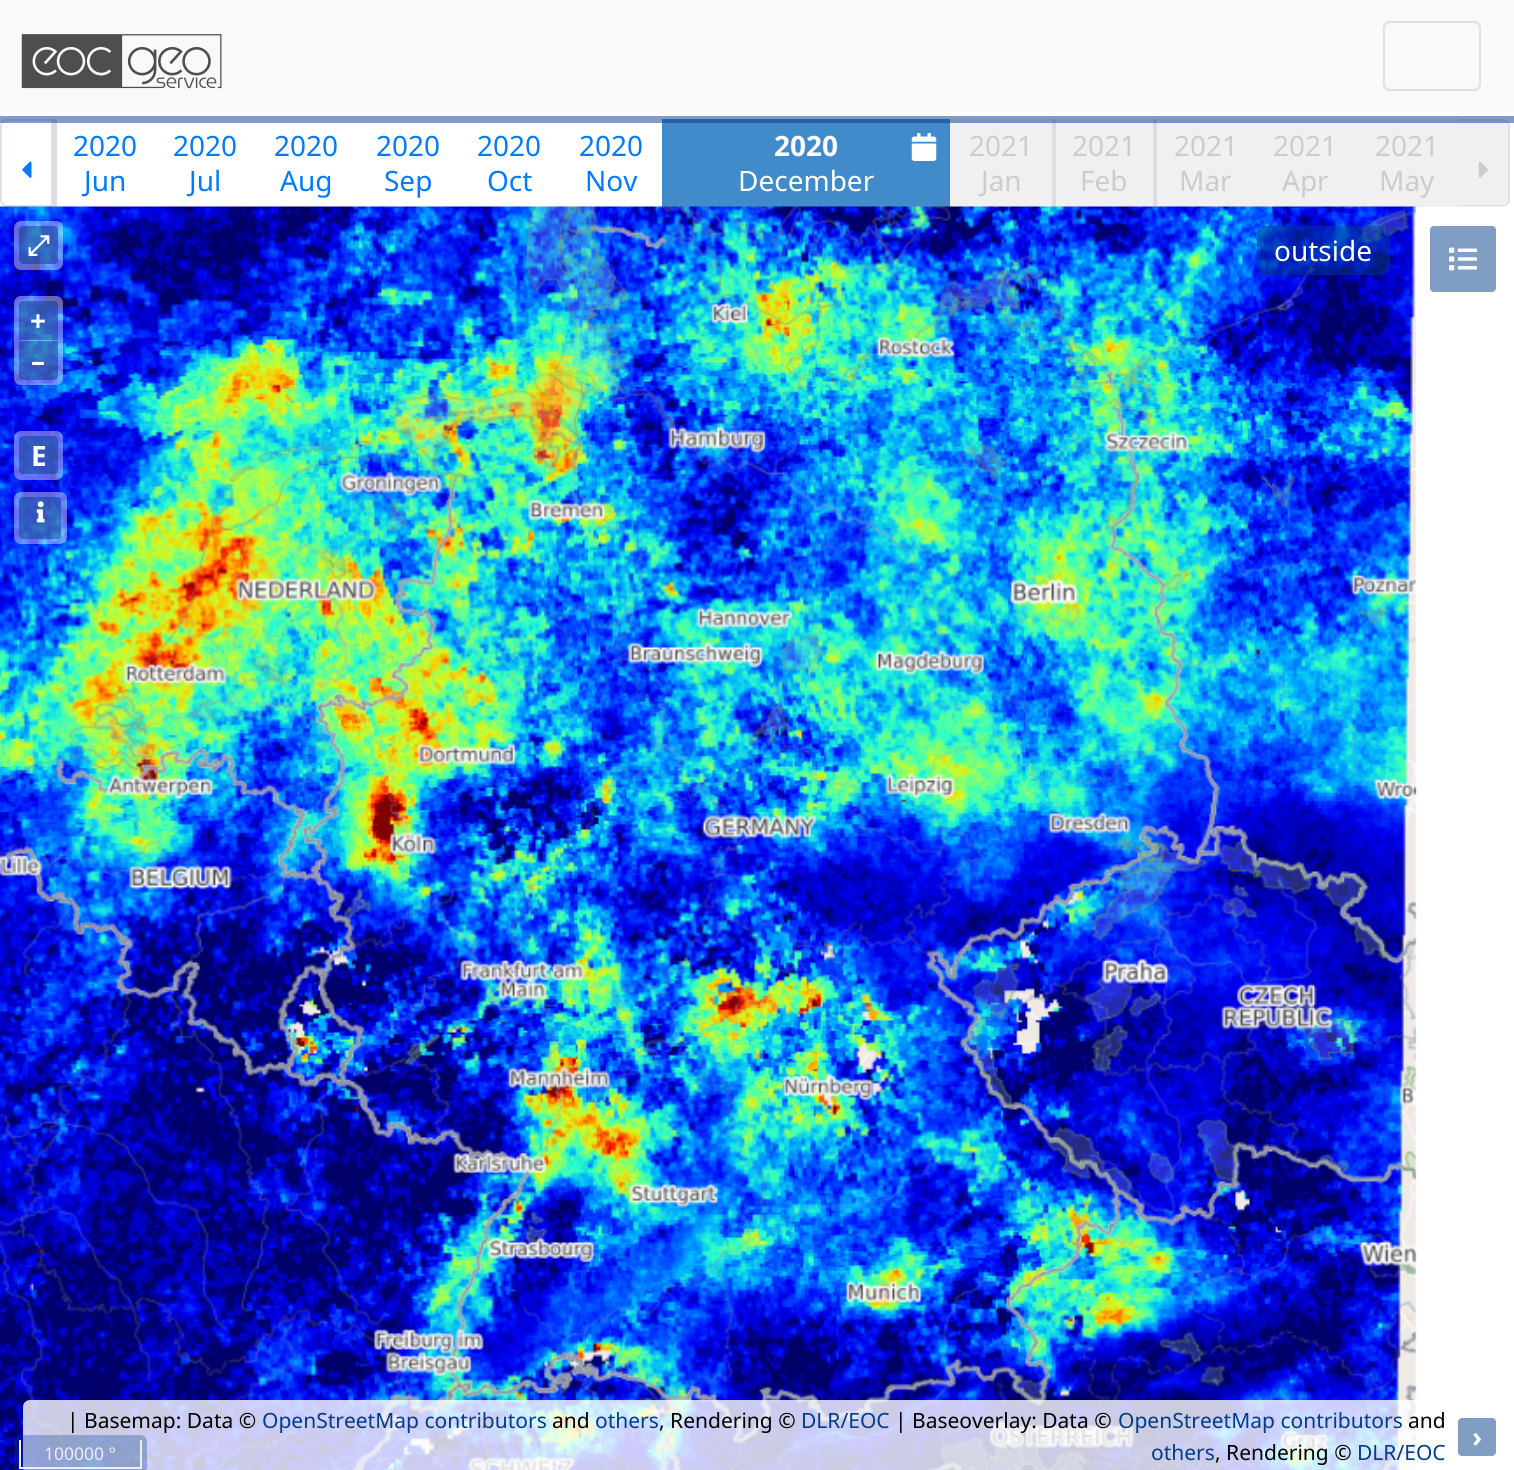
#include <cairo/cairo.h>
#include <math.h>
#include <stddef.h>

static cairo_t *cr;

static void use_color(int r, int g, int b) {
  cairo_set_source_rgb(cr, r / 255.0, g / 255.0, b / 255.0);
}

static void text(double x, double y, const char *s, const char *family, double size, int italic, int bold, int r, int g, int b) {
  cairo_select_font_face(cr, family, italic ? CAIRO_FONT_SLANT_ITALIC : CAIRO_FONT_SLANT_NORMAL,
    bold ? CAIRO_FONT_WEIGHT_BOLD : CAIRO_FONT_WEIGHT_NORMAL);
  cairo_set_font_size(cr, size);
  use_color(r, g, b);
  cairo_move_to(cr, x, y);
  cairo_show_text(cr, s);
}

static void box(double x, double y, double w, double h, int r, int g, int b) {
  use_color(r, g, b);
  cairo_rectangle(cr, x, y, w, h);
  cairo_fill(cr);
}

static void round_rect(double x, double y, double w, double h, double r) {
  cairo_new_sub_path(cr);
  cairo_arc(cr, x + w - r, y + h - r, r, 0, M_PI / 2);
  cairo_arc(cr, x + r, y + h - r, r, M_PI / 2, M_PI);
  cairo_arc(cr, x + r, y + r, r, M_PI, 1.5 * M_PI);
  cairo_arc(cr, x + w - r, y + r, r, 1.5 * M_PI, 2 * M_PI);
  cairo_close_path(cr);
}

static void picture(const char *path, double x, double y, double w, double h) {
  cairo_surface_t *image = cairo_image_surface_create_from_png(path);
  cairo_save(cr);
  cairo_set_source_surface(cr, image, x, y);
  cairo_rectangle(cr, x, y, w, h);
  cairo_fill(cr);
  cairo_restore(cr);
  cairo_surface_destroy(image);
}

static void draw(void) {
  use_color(255, 255, 255);
  cairo_paint(cr);
  box(0, 0, 1514, 112, 248, 249, 250);
  picture("img_01.png", 21, 34, 201, 55);
  round_rect(1384, 22, 96, 68, 6);
  use_color(223, 224, 225);
  cairo_stroke(cr);
  cairo_new_path(cr);
  cairo_move_to(cr, 7, 120);
  cairo_line_to(cr, 52, 120);
  cairo_line_to(cr, 52, 206);
  cairo_line_to(cr, 7, 206);
  cairo_curve_to(cr, 3.5, 206, 1, 203.5, 1, 200);
  cairo_line_to(cr, 1, 126);
  cairo_curve_to(cr, 1, 122.5, 3.5, 120, 7, 120);
  cairo_close_path(cr);
  use_color(222, 226, 230);
  cairo_stroke(cr);
  box(53, 119, 4, 88, 221, 221, 221);
  box(662, 119, 288, 88, 66, 139, 202);
  box(950, 119, 102, 88, 240, 240, 240);
  box(1056, 119, 97, 88, 240, 240, 240);
  box(1052, 119, 4, 88, 221, 221, 221);
  box(1157, 119, 301, 88, 240, 240, 240);
  box(1153, 119, 4, 88, 221, 221, 221);
  use_color(240, 240, 240);
  cairo_new_path(cr);
  cairo_move_to(cr, 1458, 119);
  cairo_line_to(cr, 1503, 119);
  cairo_curve_to(cr, 1507, 119, 1510, 122, 1510, 126);
  cairo_line_to(cr, 1510, 200);
  cairo_curve_to(cr, 1510, 204, 1507, 207, 1503, 207);
  cairo_line_to(cr, 1458, 207);
  cairo_close_path(cr);
  cairo_fill(cr);
  use_color(222, 226, 230);
  cairo_set_fill_rule(cr, CAIRO_FILL_RULE_EVEN_ODD);
  cairo_new_path(cr);
  cairo_move_to(cr, 1458, 119);
  cairo_line_to(cr, 1503, 119);
  cairo_curve_to(cr, 1507, 119, 1510, 122, 1510, 126);
  cairo_line_to(cr, 1510, 200);
  cairo_curve_to(cr, 1510, 203, 1507, 206, 1503, 206);
  cairo_line_to(cr, 1458, 206);
  cairo_close_path(cr);
  cairo_move_to(cr, 1458, 121);
  cairo_line_to(cr, 1503, 121);
  cairo_curve_to(cr, 1506, 121, 1508, 123, 1508, 126);
  cairo_line_to(cr, 1508, 200);
  cairo_curve_to(cr, 1508, 202, 1506, 205, 1503, 205);
  cairo_line_to(cr, 1458, 205);
  cairo_close_path(cr);
  cairo_fill(cr);
  cairo_set_source_rgba(cr, 0, 0.235, 0.533, 0.5);
  cairo_rectangle(cr, 0, 116, 1514, 7);
  cairo_fill(cr);
  picture("img_02.png", 22, 161, 10, 17);
  picture("img_03.png", 911, 133, 26, 28);
  picture("img_04.png", 1478, 161, 10, 17);
  picture("img_05.png", 0, 206, 1417, 1264);
  cairo_set_source_rgba(cr, 1, 1, 1, 0.4);
  round_rect(14, 221, 49, 49, 7);
  cairo_fill(cr);
  cairo_set_source_rgba(cr, 0, 0.235, 0.533, 0.5);
  round_rect(19, 226, 39, 38, 4);
  cairo_fill(cr);
  round_rect(1257, 226, 133, 49, 9);
  cairo_fill(cr);
  use_color(128, 158, 196);
  round_rect(1430, 226, 66, 66, 4);
  cairo_fill(cr);
  picture("img_06.png", 1449, 247, 28, 24);
  cairo_set_source_rgba(cr, 1, 1, 1, 0.4);
  round_rect(14, 296, 49, 89, 7);
  cairo_fill(cr);
  cairo_set_source_rgba(cr, 0, 0.235, 0.533, 0.5);
  cairo_new_path(cr);
  cairo_move_to(cr, 23, 301);
  cairo_line_to(cr, 54, 301);
  cairo_curve_to(cr, 56, 301, 58, 303, 58, 305);
  cairo_line_to(cr, 58, 340);
  cairo_line_to(cr, 19, 340);
  cairo_line_to(cr, 19, 305);
  cairo_curve_to(cr, 19, 303, 21, 301, 23, 301);
  cairo_close_path(cr);
  cairo_fill(cr);
  cairo_new_path(cr);
  cairo_move_to(cr, 19, 341);
  cairo_line_to(cr, 58, 341);
  cairo_line_to(cr, 58, 376);
  cairo_curve_to(cr, 58, 378, 56, 380, 54, 380);
  cairo_line_to(cr, 23, 380);
  cairo_curve_to(cr, 21, 380, 19, 378, 19, 376);
  cairo_close_path(cr);
  cairo_fill(cr);
  cairo_set_source_rgba(cr, 1, 1, 1, 0.4);
  round_rect(14, 431, 49, 49, 7);
  cairo_fill(cr);
  cairo_set_source_rgba(cr, 0, 0.235, 0.533, 0.5);
  round_rect(19, 436, 39, 38, 4);
  cairo_fill(cr);
  cairo_set_source_rgba(cr, 1, 1, 1, 0.4);
  round_rect(14, 492, 53, 52, 7);
  cairo_fill(cr);
  cairo_set_source_rgba(cr, 0, 0.235, 0.533, 0.5);
  round_rect(19, 497, 42, 42, 4);
  cairo_fill(cr);
  picture("img_07.png", 36, 501, 9, 22);
  cairo_set_source_rgba(cr, 1, 1, 1, 0.8);
  round_rect(23, 1400, 1479, 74, 7);
  cairo_fill(cr);
  use_color(128, 158, 196);
  round_rect(1458, 1418, 38, 38, 4);
  cairo_fill(cr);
  cairo_set_source_rgba(cr, 0, 0.235, 0.533, 0.3);
  round_rect(14, 1435, 133, 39, 7);
  cairo_fill(cr);
  box(140, 1440, 2, 28, 238, 238, 238);
  box(19, 1467, 123, 2, 238, 238, 238);
  box(19, 1440, 2, 28, 238, 238, 238);
  text(73, 156, "2020", "Noto Sans", 28, 0, 0, 0, 123, 255);
  text(84, 191, "Jun", "Noto Sans", 28, 0, 0, 0, 123, 255);
  text(173, 156, "2020", "Noto Sans", 28, 0, 0, 0, 123, 255);
  text(189, 191, "Jul", "Noto Sans", 28, 0, 0, 0, 123, 255);
  text(274, 156, "2020", "Noto Sans", 28, 0, 0, 0, 123, 255);
  text(280, 191, "Aug", "Noto Sans", 28, 0, 0, 0, 123, 255);
  text(376, 156, "2020", "Noto Sans", 28, 0, 0, 0, 123, 255);
  text(384, 191, "Sep", "Noto Sans", 28, 0, 0, 0, 123, 255);
  text(477, 156, "2020", "Noto Sans", 28, 0, 0, 0, 123, 255);
  text(487, 191, "Oct", "Noto Sans", 28, 0, 0, 0, 123, 255);
  text(579, 156, "2020", "Noto Sans", 28, 0, 0, 0, 123, 255);
  text(585, 191, "Nov", "Noto Sans", 28, 0, 0, 0, 123, 255);
  text(774, 156, "2020", "Noto Sans", 28, 0, 1, 255, 255, 255);
  text(738, 191, "December", "Noto Sans", 28, 0, 0, 255, 255, 255);
  text(969, 156, "2021", "Noto Sans", 28, 0, 0, 204, 204, 204);
  text(981, 191, "Jan", "Noto Sans", 28, 0, 0, 204, 204, 204);
  text(1072, 156, "2021", "Noto Sans", 28, 0, 0, 204, 204, 204);
  text(1080, 191, "Feb", "Noto Sans", 28, 0, 0, 204, 204, 204);
  text(1174, 156, "2021", "Noto Sans", 28, 0, 0, 204, 204, 204);
  text(1179, 191, "Mar", "Noto Sans", 28, 0, 0, 204, 204, 204);
  text(1273, 156, "2021", "Noto Sans", 28, 0, 0, 204, 204, 204);
  text(1282, 191, "Apr", "Noto Sans", 28, 0, 0, 204, 204, 204);
  text(1375, 156, "2021", "Noto Sans", 28, 0, 0, 204, 204, 204);
  text(1379, 191, "May", "Noto Sans", 28, 0, 0, 204, 204, 204);
  text(27, 255, "⤢", "FreeSerif", 28, 0, 1, 255, 255, 255);
  text(1274, 261, "outside", "Noto Sans", 28, 0, 0, 255, 255, 255);
  text(30, 331, "+", "Noto Sans", 28, 0, 1, 255, 255, 255);
  text(31, 371, "–", "Noto Sans", 28, 0, 1, 255, 255, 255);
  text(31, 466, "E", "Noto Sans", 28, 0, 1, 255, 255, 255);
  text(67, 1428, "| Basemap: Data ©", "Noto Sans", 21, 0, 0, 0, 0, 0);
  text(262, 1428, "OpenStreetMap contributors", "Noto Sans", 21, 0, 0, 0, 60, 136);
  text(552, 1428, "and", "Noto Sans", 21, 0, 0, 0, 0, 0);
  text(595, 1428, "others", "Noto Sans", 21, 0, 0, 0, 60, 136);
  text(659, 1428, ", Rendering ©", "Noto Sans", 21, 0, 0, 0, 0, 0);
  text(801, 1428, "DLR/EOC", "Noto Sans", 21, 0, 0, 0, 60, 136);
  text(895, 1428, "| Baseoverlay: Data ©", "Noto Sans", 21, 0, 0, 0, 0, 0);
  text(1118, 1428, "OpenStreetMap contributors", "Noto Sans", 21, 0, 0, 0, 60, 136);
  text(1408, 1428, "and", "Noto Sans", 21, 0, 0, 0, 0, 0);
  text(1151, 1460, "others", "Noto Sans", 21, 0, 0, 0, 60, 136);
  text(1215, 1460, ", Rendering ©", "Noto Sans", 21, 0, 0, 0, 0, 0);
  text(1357, 1460, "DLR/EOC", "Noto Sans", 21, 0, 0, 0, 60, 136);
  text(1472, 1447, "›", "Noto Sans", 28, 0, 1, 255, 255, 255);
  text(44, 1460, "100000 °", "Noto Sans", 17.5, 0, 0, 238, 238, 238);
}

int main(void) {
  cairo_surface_t *surface = cairo_image_surface_create(CAIRO_FORMAT_RGB24, 1514, 1470);
  cr = cairo_create(surface);
  cairo_font_options_t *options = cairo_font_options_create();
  cairo_font_options_set_hint_metrics(options, CAIRO_HINT_METRICS_OFF);
  cairo_font_options_set_hint_style(options, CAIRO_HINT_STYLE_NONE);
  cairo_set_font_options(cr, options);
  cairo_set_miter_limit(cr, 4);
  draw();
  cairo_surface_write_to_png(surface, "out.png");
  cairo_font_options_destroy(options);
  cairo_destroy(cr);
  cairo_surface_destroy(surface);
  return 0;
}
